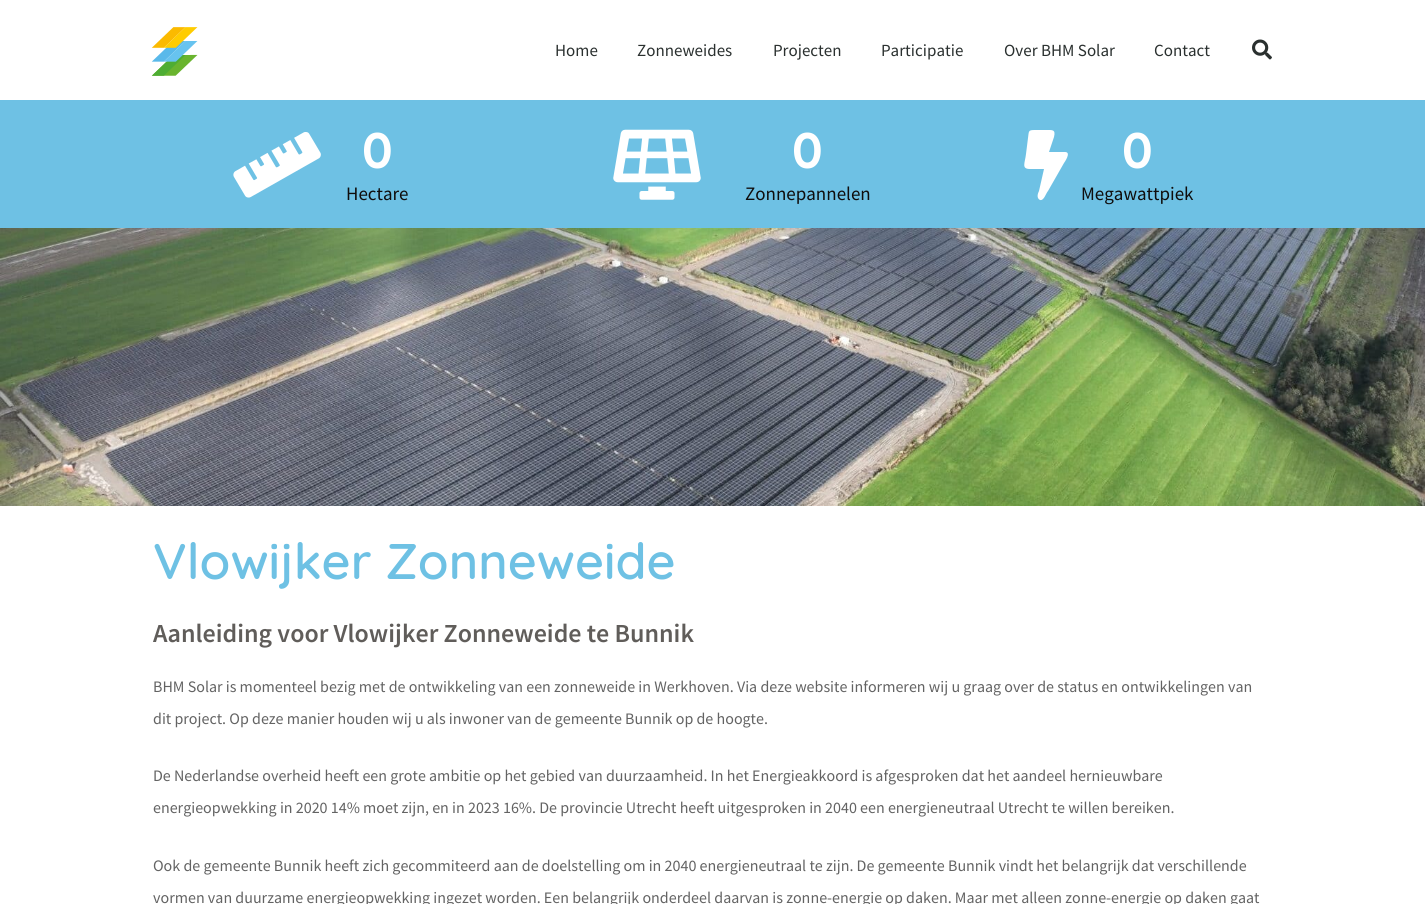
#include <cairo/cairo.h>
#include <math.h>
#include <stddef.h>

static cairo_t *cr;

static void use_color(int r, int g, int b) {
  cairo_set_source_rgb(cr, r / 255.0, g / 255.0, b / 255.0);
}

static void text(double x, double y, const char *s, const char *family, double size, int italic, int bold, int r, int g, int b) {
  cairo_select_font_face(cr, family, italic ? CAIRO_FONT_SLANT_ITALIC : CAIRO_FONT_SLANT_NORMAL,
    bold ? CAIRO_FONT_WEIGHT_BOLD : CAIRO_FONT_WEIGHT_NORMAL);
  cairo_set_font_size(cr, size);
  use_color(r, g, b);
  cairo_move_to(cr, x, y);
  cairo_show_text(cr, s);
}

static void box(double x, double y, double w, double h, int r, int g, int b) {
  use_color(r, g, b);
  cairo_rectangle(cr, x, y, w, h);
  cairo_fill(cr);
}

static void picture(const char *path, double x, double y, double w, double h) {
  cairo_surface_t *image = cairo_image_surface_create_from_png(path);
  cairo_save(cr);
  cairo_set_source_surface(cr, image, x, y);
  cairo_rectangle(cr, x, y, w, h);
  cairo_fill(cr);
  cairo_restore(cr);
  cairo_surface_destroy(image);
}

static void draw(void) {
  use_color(255, 255, 255);
  cairo_paint(cr);
  picture("img_01.png", 151, 27, 47, 49);
  picture("img_02.png", 1252, 39, 20, 21);
  box(0, 100, 1425, 128, 110, 193, 228);
  picture("img_03.png", 233, 132, 88, 66);
  picture("img_04.png", 613, 129, 88, 71);
  use_color(255, 255, 255);
  cairo_new_path(cr);
  cairo_move_to(cr, 1065, 152);
  cairo_curve_to(cr, 1072, 152, 1064, 163, 1064, 163);
  cairo_line_to(cr, 1048, 191);
  cairo_curve_to(cr, 1046, 193, 1044, 201, 1040, 200);
  cairo_curve_to(cr, 1036, 198, 1038, 193, 1039, 191);
  cairo_line_to(cr, 1044, 169);
  cairo_line_to(cr, 1030, 169);
  cairo_curve_to(cr, 1021, 169, 1025, 163, 1026, 154);
  cairo_line_to(cr, 1028, 138);
  cairo_curve_to(cr, 1029, 131, 1028, 130, 1035, 130);
  cairo_line_to(cr, 1045, 130);
  cairo_curve_to(cr, 1052, 130, 1056, 129, 1054, 137);
  cairo_line_to(cr, 1049, 152);
  cairo_close_path(cr);
  cairo_fill(cr);
  picture("img_05.png", 0, 228, 1425, 278);
  text(555, 56, "Home", "Source Sans Pro", 17, 0, 0, 42, 48, 47);
  text(637, 56, "Zonneweides", "Source Sans Pro", 17, 0, 0, 42, 48, 47);
  text(773, 56, "Projecten", "Source Sans Pro", 17, 0, 0, 42, 48, 47);
  text(881, 56, "Participatie", "Source Sans Pro", 17, 0, 0, 42, 48, 47);
  text(1004, 56, "Over BHM Solar", "Source Sans Pro", 17, 0, 0, 42, 48, 47);
  text(1154, 56, "Contact", "Source Sans Pro", 17, 0, 0, 42, 48, 47);
  text(362, 168, "0", "Quicksand", 50, 0, 1, 255, 255, 255);
  text(346, 200, "Hectare", "Source Sans Pro", 19, 0, 0, 15, 13, 12);
  text(792, 168, "0", "Quicksand", 50, 0, 1, 255, 255, 255);
  text(745, 200, "Zonnepannelen", "Source Sans Pro", 19, 0, 0, 15, 13, 12);
  text(1122, 168, "0", "Quicksand", 50, 0, 1, 255, 255, 255);
  text(1081, 200, "Megawattpiek", "Source Sans Pro", 19, 0, 0, 15, 13, 12);
  text(153, 579, "Vlowijker Zonneweide", "Quicksand SemiBold", 50, 0, 0, 110, 193, 228);
  text(153, 642, "Aanleiding voor Vlowijker Zonneweide te Bunnik", "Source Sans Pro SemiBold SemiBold", 26, 0, 0, 96, 93, 90);
  text(153, 692, "BHM Solar is momenteel bezig met de ontwikkeling van een zonneweide in Werkhoven. Via deze website informeren wij u graag over de status en ontwikkelingen van", "Source Sans Pro", 16, 0, 0, 99, 99, 99);
  text(153, 724, "dit project. Op deze manier houden wij u als inwoner van de gemeente Bunnik op de hoogte.", "Source Sans Pro", 16, 0, 0, 99, 99, 99);
  text(153, 781, "De Nederlandse overheid heeft een grote ambitie op het gebied van duurzaamheid. In het Energieakkoord is afgesproken dat het aandeel hernieuwbare", "Source Sans Pro", 16, 0, 0, 99, 99, 99);
  text(153, 813, "energieopwekking in 2020 14% moet zijn, en in 2023 16%. De provincie Utrecht heeft uitgesproken in 2040 een energieneutraal Utrecht te willen bereiken.", "Source Sans Pro", 16, 0, 0, 99, 99, 99);
  text(153, 871, "Ook de gemeente Bunnik heeft zich gecommiteerd aan de doelstelling om in 2040 energieneutraal te zijn. De gemeente Bunnik vindt het belangrijk dat verschillende", "Source Sans Pro", 16, 0, 0, 99, 99, 99);
  text(153, 903, "vormen van duurzame energieopwekking ingezet worden. Een belangrijk onderdeel daarvan is zonne-energie op daken. Maar met alleen zonne-energie op daken gaat", "Source Sans Pro", 16, 0, 0, 99, 99, 99);
}

int main(void) {
  cairo_surface_t *surface = cairo_image_surface_create(CAIRO_FORMAT_RGB24, 1425, 904);
  cr = cairo_create(surface);
  cairo_font_options_t *options = cairo_font_options_create();
  cairo_font_options_set_hint_metrics(options, CAIRO_HINT_METRICS_OFF);
  cairo_font_options_set_hint_style(options, CAIRO_HINT_STYLE_NONE);
  cairo_set_font_options(cr, options);
  cairo_set_miter_limit(cr, 4);
  draw();
  cairo_surface_write_to_png(surface, "out.png");
  cairo_font_options_destroy(options);
  cairo_destroy(cr);
  cairo_surface_destroy(surface);
  return 0;
}
